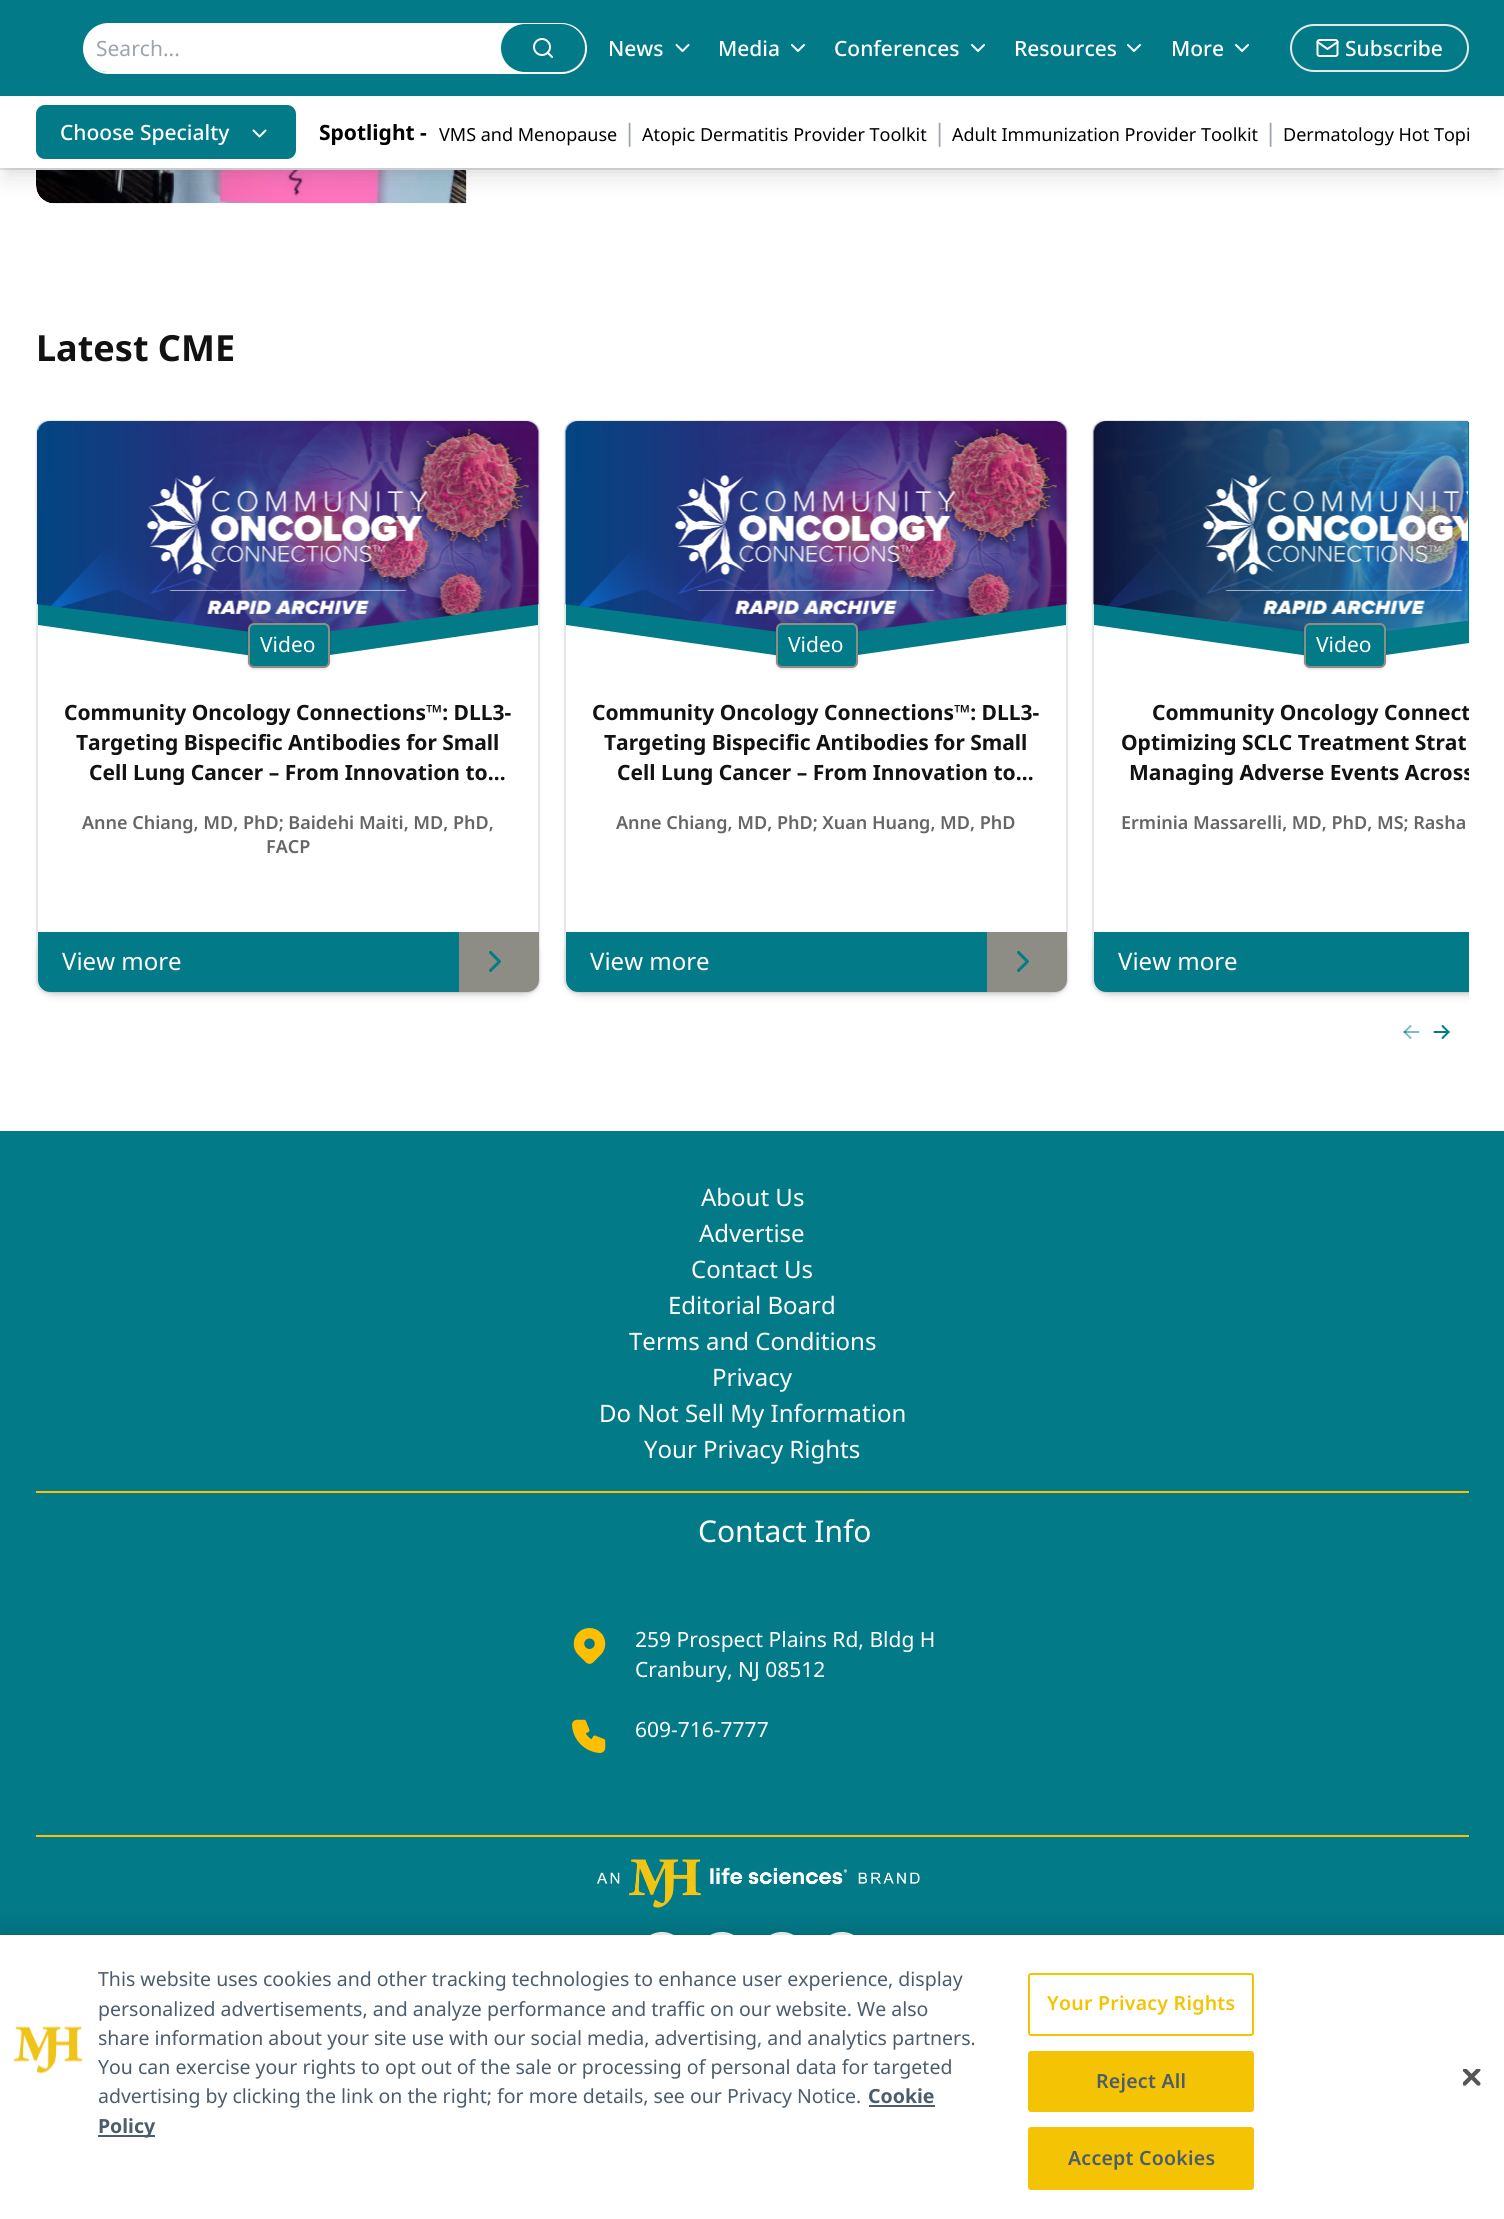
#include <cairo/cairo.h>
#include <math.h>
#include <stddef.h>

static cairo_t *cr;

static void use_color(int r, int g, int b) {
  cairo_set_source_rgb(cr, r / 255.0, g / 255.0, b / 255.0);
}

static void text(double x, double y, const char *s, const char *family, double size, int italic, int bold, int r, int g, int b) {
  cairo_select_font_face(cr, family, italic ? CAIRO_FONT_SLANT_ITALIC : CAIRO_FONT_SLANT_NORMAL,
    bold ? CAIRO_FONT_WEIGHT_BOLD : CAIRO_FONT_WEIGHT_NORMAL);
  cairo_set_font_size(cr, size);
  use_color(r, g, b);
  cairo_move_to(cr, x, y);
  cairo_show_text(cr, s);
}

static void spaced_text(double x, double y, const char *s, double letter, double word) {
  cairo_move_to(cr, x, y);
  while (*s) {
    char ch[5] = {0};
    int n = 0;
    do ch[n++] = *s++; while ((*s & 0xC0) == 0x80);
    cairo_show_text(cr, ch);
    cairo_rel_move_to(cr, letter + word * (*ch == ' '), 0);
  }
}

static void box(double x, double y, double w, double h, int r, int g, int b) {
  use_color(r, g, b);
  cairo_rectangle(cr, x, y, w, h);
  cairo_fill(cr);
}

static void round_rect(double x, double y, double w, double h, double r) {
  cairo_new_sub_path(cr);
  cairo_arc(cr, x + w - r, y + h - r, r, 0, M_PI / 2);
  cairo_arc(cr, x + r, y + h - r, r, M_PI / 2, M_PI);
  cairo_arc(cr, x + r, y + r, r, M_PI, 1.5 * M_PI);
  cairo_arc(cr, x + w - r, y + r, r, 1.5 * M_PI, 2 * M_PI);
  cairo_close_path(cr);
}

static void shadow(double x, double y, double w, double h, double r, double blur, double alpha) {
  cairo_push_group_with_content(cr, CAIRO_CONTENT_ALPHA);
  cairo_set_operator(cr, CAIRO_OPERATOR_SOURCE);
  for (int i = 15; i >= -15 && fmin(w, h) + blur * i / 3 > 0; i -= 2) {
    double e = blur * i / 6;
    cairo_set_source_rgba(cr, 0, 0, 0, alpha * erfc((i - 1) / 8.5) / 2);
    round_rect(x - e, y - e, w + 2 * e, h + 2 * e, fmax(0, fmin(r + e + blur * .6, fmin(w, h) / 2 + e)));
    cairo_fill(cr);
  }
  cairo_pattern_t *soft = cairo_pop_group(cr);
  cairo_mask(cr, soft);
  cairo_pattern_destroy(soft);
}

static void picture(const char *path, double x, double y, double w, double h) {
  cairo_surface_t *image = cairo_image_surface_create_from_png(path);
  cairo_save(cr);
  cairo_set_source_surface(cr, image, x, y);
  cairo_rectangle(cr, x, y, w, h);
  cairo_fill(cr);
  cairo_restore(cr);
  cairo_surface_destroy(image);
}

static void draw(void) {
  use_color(255, 255, 255);
  cairo_paint(cr);
  box(0, 0, 1504, 96, 2, 122, 136);
  box(0, 168, 1504, 2, 229, 231, 235);
  round_rect(84, 24, 502, 49, 24.5);
  use_color(255, 255, 255);
  cairo_stroke(cr);
  round_rect(84, 24, 501, 48, 24);
  cairo_fill(cr);
  use_color(2, 122, 136);
  round_rect(501, 24, 84, 48, 24);
  cairo_fill(cr);
  cairo_arc(cr, 542, 47, 8, 0, 2 * M_PI);
  use_color(255, 255, 255);
  cairo_stroke(cr);
  cairo_new_path(cr);
  cairo_move_to(cr, 552, 57);
  cairo_line_to(cr, 547.5, 52.5);
  cairo_set_line_cap(cr, CAIRO_LINE_CAP_ROUND);
  cairo_set_line_join(cr, CAIRO_LINE_JOIN_ROUND);
  cairo_stroke(cr);
  cairo_new_path(cr);
  cairo_move_to(cr, 676.5, 45);
  cairo_line_to(cr, 682.5, 51);
  cairo_line_to(cr, 688.5, 45);
  cairo_stroke(cr);
  cairo_new_path(cr);
  cairo_move_to(cr, 792, 45);
  cairo_line_to(cr, 798, 51);
  cairo_line_to(cr, 804, 45);
  cairo_stroke(cr);
  cairo_new_path(cr);
  cairo_move_to(cr, 972, 45);
  cairo_line_to(cr, 978, 51);
  cairo_line_to(cr, 984, 45);
  cairo_stroke(cr);
  cairo_new_path(cr);
  cairo_move_to(cr, 1128, 45);
  cairo_line_to(cr, 1134, 51);
  cairo_line_to(cr, 1140, 45);
  cairo_stroke(cr);
  cairo_new_path(cr);
  cairo_move_to(cr, 1236, 45);
  cairo_line_to(cr, 1242, 51);
  cairo_line_to(cr, 1248, 45);
  cairo_stroke(cr);
  round_rect(1291, 25, 177, 46, 23);
  use_color(229, 231, 235);
  cairo_set_line_cap(cr, CAIRO_LINE_CAP_BUTT);
  cairo_set_line_join(cr, CAIRO_LINE_JOIN_MITER);
  cairo_stroke(cr);
  picture("img_01.png", 1316, 39, 23, 18);
  picture("img_02.png", 36, 170, 431, 34);
  use_color(0, 0, 0);
  shadow(6, 108, 1493, 60, 0, 4.5, 0.1);
  shadow(5, 116, 1495, 63, 0, 11, 0.1);
  box(0, 100, 1504, 68, 255, 255, 255);
  use_color(2, 122, 136);
  round_rect(36, 105, 260, 54, 9);
  cairo_fill(cr);
  cairo_new_path(cr);
  cairo_move_to(cr, 253.5, 130.5);
  cairo_line_to(cr, 259.5, 136.5);
  cairo_line_to(cr, 265.5, 130.5);
  use_color(255, 255, 255);
  cairo_set_line_cap(cr, CAIRO_LINE_CAP_ROUND);
  cairo_set_line_join(cr, CAIRO_LINE_JOIN_ROUND);
  cairo_stroke(cr);
  cairo_save(cr);
  cairo_set_fill_rule(cr, CAIRO_FILL_RULE_EVEN_ODD);
  cairo_new_path(cr);
  cairo_move_to(cr, 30, 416);
  cairo_line_to(cr, 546, 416);
  cairo_line_to(cr, 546, 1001);
  cairo_line_to(cr, 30, 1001);
  cairo_close_path(cr);
  cairo_move_to(cr, 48, 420);
  cairo_line_to(cr, 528, 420);
  cairo_curve_to(cr, 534.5, 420, 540, 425.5, 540, 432);
  cairo_line_to(cr, 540, 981);
  cairo_curve_to(cr, 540, 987.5, 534.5, 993, 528, 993);
  cairo_line_to(cr, 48, 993);
  cairo_curve_to(cr, 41.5, 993, 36, 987.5, 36, 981);
  cairo_line_to(cr, 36, 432);
  cairo_curve_to(cr, 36, 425.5, 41.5, 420, 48, 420);
  cairo_close_path(cr);
  cairo_clip(cr);
  use_color(0, 0, 0);
  shadow(36, 422, 504, 573, 12, 1.5, 0.05);
  cairo_restore(cr);
  round_rect(37, 421, 502, 571, 11);
  use_color(229, 231, 235);
  cairo_set_line_cap(cr, CAIRO_LINE_CAP_BUTT);
  cairo_set_line_join(cr, CAIRO_LINE_JOIN_MITER);
  cairo_stroke(cr);
  use_color(2, 122, 136);
  cairo_new_path(cr);
  cairo_move_to(cr, 50, 422);
  cairo_line_to(cr, 527, 422);
  cairo_curve_to(cr, 532, 422, 537, 426, 538, 431);
  cairo_line_to(cr, 538, 625);
  cairo_line_to(cr, 288, 661);
  cairo_line_to(cr, 38, 625);
  cairo_line_to(cr, 38, 434);
  cairo_curve_to(cr, 38, 427, 43, 422, 50, 422);
  cairo_close_path(cr);
  cairo_fill(cr);
  picture("img_03.png", 37, 421, 502, 211);
  use_color(0, 0, 0);
  shadow(249, 626, 80, 42, 5, 1.5, 0.1);
  shadow(248, 624, 82, 45, 6, 2, 0.1);
  use_color(2, 122, 136);
  round_rect(249, 624, 80, 43, 5);
  cairo_fill_preserve(cr);
  use_color(142, 141, 133);
  cairo_stroke(cr);
  use_color(0, 0, 0);
  shadow(41, 938, 495, 54, 15, 3, 0.1);
  shadow(39, 939, 498, 57, 17, 4.5, 0.1);
  use_color(2, 122, 136);
  cairo_new_path(cr);
  cairo_move_to(cr, 38, 932);
  cairo_line_to(cr, 539, 932);
  cairo_line_to(cr, 539, 974);
  cairo_curve_to(cr, 539, 984, 531, 992, 521, 992);
  cairo_line_to(cr, 50, 992);
  cairo_curve_to(cr, 43.5, 992, 38, 986.5, 38, 980);
  cairo_close_path(cr);
  cairo_fill(cr);
  use_color(142, 141, 133);
  cairo_new_path(cr);
  cairo_move_to(cr, 459, 932);
  cairo_line_to(cr, 539, 932);
  cairo_line_to(cr, 539, 980);
  cairo_curve_to(cr, 539, 986.5, 533.5, 992, 527, 992);
  cairo_line_to(cr, 459, 992);
  cairo_close_path(cr);
  cairo_fill(cr);
  cairo_new_path(cr);
  cairo_move_to(cr, 490.5, 952.5);
  cairo_line_to(cr, 499.5, 961.5);
  cairo_line_to(cr, 490.5, 970.5);
  use_color(2, 122, 136);
  cairo_set_line_width(cr, 3);
  cairo_set_line_cap(cr, CAIRO_LINE_CAP_ROUND);
  cairo_set_line_join(cr, CAIRO_LINE_JOIN_ROUND);
  cairo_stroke(cr);
  cairo_save(cr);
  cairo_set_fill_rule(cr, CAIRO_FILL_RULE_EVEN_ODD);
  cairo_new_path(cr);
  cairo_move_to(cr, 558, 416);
  cairo_line_to(cr, 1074, 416);
  cairo_line_to(cr, 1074, 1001);
  cairo_line_to(cr, 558, 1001);
  cairo_close_path(cr);
  cairo_move_to(cr, 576, 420);
  cairo_line_to(cr, 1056, 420);
  cairo_curve_to(cr, 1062.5, 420, 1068, 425.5, 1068, 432);
  cairo_line_to(cr, 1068, 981);
  cairo_curve_to(cr, 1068, 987.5, 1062.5, 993, 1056, 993);
  cairo_line_to(cr, 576, 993);
  cairo_curve_to(cr, 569.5, 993, 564, 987.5, 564, 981);
  cairo_line_to(cr, 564, 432);
  cairo_curve_to(cr, 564, 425.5, 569.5, 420, 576, 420);
  cairo_close_path(cr);
  cairo_clip(cr);
  use_color(0, 0, 0);
  shadow(564, 422, 504, 573, 12, 1.5, 0.05);
  cairo_restore(cr);
  round_rect(565, 421, 502, 571, 11);
  use_color(229, 231, 235);
  cairo_set_line_width(cr, 2);
  cairo_set_line_cap(cr, CAIRO_LINE_CAP_BUTT);
  cairo_set_line_join(cr, CAIRO_LINE_JOIN_MITER);
  cairo_stroke(cr);
  use_color(2, 122, 136);
  cairo_new_path(cr);
  cairo_move_to(cr, 578, 422);
  cairo_line_to(cr, 1055, 422);
  cairo_curve_to(cr, 1060, 422, 1065, 426, 1066, 431);
  cairo_line_to(cr, 1066, 625);
  cairo_line_to(cr, 816, 661);
  cairo_line_to(cr, 566, 625);
  cairo_line_to(cr, 566, 434);
  cairo_curve_to(cr, 566, 427, 571, 422, 578, 422);
  cairo_close_path(cr);
  cairo_fill(cr);
  picture("img_04.png", 565, 421, 502, 211);
  use_color(0, 0, 0);
  shadow(777, 626, 80, 42, 5, 1.5, 0.1);
  shadow(776, 624, 82, 45, 6, 2, 0.1);
  use_color(2, 122, 136);
  round_rect(777, 624, 80, 43, 5);
  cairo_fill_preserve(cr);
  use_color(142, 141, 133);
  cairo_stroke(cr);
  use_color(0, 0, 0);
  shadow(569, 938, 495, 54, 15, 3, 0.1);
  shadow(567, 939, 498, 57, 17, 4.5, 0.1);
  use_color(2, 122, 136);
  cairo_new_path(cr);
  cairo_move_to(cr, 566, 932);
  cairo_line_to(cr, 1067, 932);
  cairo_line_to(cr, 1067, 974);
  cairo_curve_to(cr, 1067, 984, 1059, 992, 1049, 992);
  cairo_line_to(cr, 578, 992);
  cairo_curve_to(cr, 571.5, 992, 566, 986.5, 566, 980);
  cairo_close_path(cr);
  cairo_fill(cr);
  use_color(142, 141, 133);
  cairo_new_path(cr);
  cairo_move_to(cr, 987, 932);
  cairo_line_to(cr, 1067, 932);
  cairo_line_to(cr, 1067, 980);
  cairo_curve_to(cr, 1067, 986.5, 1061.5, 992, 1055, 992);
  cairo_line_to(cr, 987, 992);
  cairo_close_path(cr);
  cairo_fill(cr);
  cairo_new_path(cr);
  cairo_move_to(cr, 1018.5, 952.5);
  cairo_line_to(cr, 1027.5, 961.5);
  cairo_line_to(cr, 1018.5, 970.5);
  use_color(2, 122, 136);
  cairo_set_line_width(cr, 3);
  cairo_set_line_cap(cr, CAIRO_LINE_CAP_ROUND);
  cairo_set_line_join(cr, CAIRO_LINE_JOIN_ROUND);
  cairo_stroke(cr);
  cairo_save(cr);
  cairo_rectangle(cr, 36, 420, 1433, 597);
  cairo_clip(cr);
  cairo_set_fill_rule(cr, CAIRO_FILL_RULE_EVEN_ODD);
  cairo_new_path(cr);
  cairo_move_to(cr, 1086, 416);
  cairo_line_to(cr, 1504, 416);
  cairo_line_to(cr, 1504, 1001);
  cairo_line_to(cr, 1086, 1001);
  cairo_close_path(cr);
  cairo_move_to(cr, 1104, 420);
  cairo_line_to(cr, 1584, 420);
  cairo_curve_to(cr, 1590.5, 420, 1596, 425.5, 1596, 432);
  cairo_line_to(cr, 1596, 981);
  cairo_curve_to(cr, 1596, 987.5, 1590.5, 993, 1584, 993);
  cairo_line_to(cr, 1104, 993);
  cairo_curve_to(cr, 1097.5, 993, 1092, 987.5, 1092, 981);
  cairo_line_to(cr, 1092, 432);
  cairo_curve_to(cr, 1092, 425.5, 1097.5, 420, 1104, 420);
  cairo_close_path(cr);
  cairo_clip(cr);
  use_color(0, 0, 0);
  shadow(1092, 422, 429, 573, 12, 1.5, 0.05);
  cairo_restore(cr);
  cairo_save(cr);
  cairo_rectangle(cr, 36, 420, 1433, 597);
  cairo_clip(cr);
  round_rect(1093, 421, 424, 571, 11);
  use_color(229, 231, 235);
  cairo_set_line_width(cr, 2);
  cairo_set_line_cap(cr, CAIRO_LINE_CAP_BUTT);
  cairo_set_line_join(cr, CAIRO_LINE_JOIN_MITER);
  cairo_stroke(cr);
  use_color(2, 122, 136);
  cairo_new_path(cr);
  cairo_move_to(cr, 1106, 422);
  cairo_line_to(cr, 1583, 422);
  cairo_curve_to(cr, 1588, 422, 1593, 426, 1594, 431);
  cairo_line_to(cr, 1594, 625);
  cairo_line_to(cr, 1344, 661);
  cairo_line_to(cr, 1094, 625);
  cairo_line_to(cr, 1094, 434);
  cairo_curve_to(cr, 1094, 427, 1099, 422, 1106, 422);
  cairo_close_path(cr);
  cairo_fill(cr);
  cairo_restore(cr);
  picture("img_05.png", 1093, 421, 375, 211);
  use_color(0, 0, 0);
  shadow(1305, 626, 80, 42, 5, 1.5, 0.1);
  shadow(1304, 624, 82, 45, 6, 2, 0.1);
  use_color(2, 122, 136);
  round_rect(1305, 624, 80, 43, 5);
  cairo_fill_preserve(cr);
  use_color(142, 141, 133);
  cairo_set_line_width(cr, 2);
  cairo_set_line_cap(cr, CAIRO_LINE_CAP_BUTT);
  cairo_set_line_join(cr, CAIRO_LINE_JOIN_MITER);
  cairo_stroke(cr);
  cairo_save(cr);
  cairo_rectangle(cr, 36, 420, 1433, 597);
  cairo_clip(cr);
  use_color(0, 0, 0);
  shadow(1097, 938, 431, 54, 15, 3, 0.1);
  shadow(1095, 939, 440, 57, 17, 4.5, 0.1);
  cairo_restore(cr);
  use_color(2, 122, 136);
  cairo_new_path(cr);
  cairo_move_to(cr, 1094, 932);
  cairo_line_to(cr, 1469, 932);
  cairo_line_to(cr, 1469, 992);
  cairo_line_to(cr, 1106, 992);
  cairo_curve_to(cr, 1099.5, 992, 1094, 986.5, 1094, 980);
  cairo_close_path(cr);
  cairo_fill(cr);
  picture("img_06.png", 1403, 1025, 17, 14);
  picture("img_07.png", 1433, 1025, 17, 14);
  box(0, 1131, 1504, 804, 2, 122, 136);
  box(36, 1491, 1433, 2, 255, 191, 0);
  box(36, 1835, 1433, 2, 255, 191, 0);
  picture("img_08.png", 573, 1628, 33, 36);
  picture("img_09.png", 572, 1719, 34, 34);
  picture("img_10.png", 597, 1859, 323, 49);
  picture("img_11.png", 650, 1932, 24, 3);
  picture("img_11.png", 710, 1932, 24, 3);
  picture("img_11.png", 770, 1932, 24, 3);
  picture("img_11.png", 830, 1932, 24, 3);
  use_color(0, 0, 0);
  shadow(0, 1935, 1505, 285, 0, 13.5, 0.2);
  box(0, 1935, 1504, 284, 255, 255, 255);
  picture("img_12.png", 13, 2026, 70, 48);
  box(869, 2105, 66, 2, 76, 92, 107);
  box(98, 2135, 57, 2, 76, 92, 107);
  round_rect(1029, 1974, 224, 61, 2);
  use_color(244, 196, 4);
  cairo_stroke(cr);
  round_rect(1029, 2052, 224, 59, 2);
  cairo_fill_preserve(cr);
  cairo_stroke(cr);
  round_rect(1029, 2128, 224, 61, 2);
  cairo_fill_preserve(cr);
  cairo_stroke(cr);
  picture("img_13.png", 1463, 2069, 18, 17);
  text(96, 56, "Search...", "Noto Sans", 21, 0, 0, 156, 163, 175);
  text(608, 56, "News", "Noto Sans Medium", 21, 0, 0, 255, 255, 255);
  text(718, 56, "Media", "Noto Sans Medium", 21, 0, 0, 255, 255, 255);
  text(834, 56, "Conferences", "Noto Sans Medium", 21, 0, 0, 255, 255, 255);
  text(1014, 56, "Resources", "Noto Sans Medium", 21, 0, 0, 255, 255, 255);
  text(1171, 56, "More", "Noto Sans Medium", 21, 0, 0, 255, 255, 255);
  text(1345, 56, "Subscribe", "Noto Sans Medium", 21, 0, 0, 255, 255, 255);
  text(60, 140, "Choose Specialty", "Noto Sans Medium", 21, 0, 0, 255, 255, 255);
  text(319, 140, "Spotlight -", "Noto Sans", 21, 0, 1, 0, 0, 0);
  text(439, 141, "VMS and Menopause", "Noto Sans", 18, 0, 0, 0, 0, 0);
  text(623, 141, "|", "Noto Sans", 24, 0, 0, 156, 163, 175);
  text(642, 141, "Atopic Dermatitis Provider Toolkit", "Noto Sans", 18, 0, 0, 0, 0, 0);
  text(933, 141, "|", "Noto Sans", 24, 0, 0, 156, 163, 175);
  text(952, 141, "Adult Immunization Provider Toolkit", "Noto Sans", 18, 0, 0, 0, 0, 0);
  text(1264, 141, "|", "Noto Sans", 24, 0, 0, 156, 163, 175);
  cairo_save(cr);
  cairo_rectangle(cr, 320, 105, 1149, 54);
  cairo_clip(cr);
  text(1283, 141, "Dermatology Hot Topi", "Noto Sans", 18, 0, 0, 0, 0, 0);
  cairo_restore(cr);
  text(36, 361, "Latest CME", "Noto Sans", 36, 0, 1, 18, 18, 18);
  text(260, 652, "Video", "Noto Sans", 21, 0, 0, 255, 255, 255);
  text(64, 720, "Community Oncology Connections™: DLL3-", "Noto Sans", 21, 0, 1, 18, 18, 18);
  text(76, 750, "Targeting Bispecific Antibodies for Small", "Noto Sans", 21, 0, 1, 18, 18, 18);
  text(89, 780, "Cell Lung Cancer – From Innovation to…", "Noto Sans", 21, 0, 1, 18, 18, 18);
  text(82, 829, "Anne Chiang, MD, PhD; Baidehi Maiti, MD, PhD,", "Noto Sans SemiBold", 18, 0, 0, 102, 102, 102);
  text(266, 853, "FACP", "Noto Sans SemiBold", 18, 0, 0, 102, 102, 102);
  text(62, 970, "View more", "Noto Sans", 24, 0, 0, 255, 255, 255);
  text(788, 652, "Video", "Noto Sans", 21, 0, 0, 255, 255, 255);
  text(592, 720, "Community Oncology Connections™: DLL3-", "Noto Sans", 21, 0, 1, 18, 18, 18);
  text(604, 750, "Targeting Bispecific Antibodies for Small", "Noto Sans", 21, 0, 1, 18, 18, 18);
  text(617, 780, "Cell Lung Cancer – From Innovation to…", "Noto Sans", 21, 0, 1, 18, 18, 18);
  text(616, 829, "Anne Chiang, MD, PhD; Xuan Huang, MD, PhD", "Noto Sans SemiBold", 18, 0, 0, 102, 102, 102);
  text(590, 970, "View more", "Noto Sans", 24, 0, 0, 255, 255, 255);
  text(1316, 652, "Video", "Noto Sans", 21, 0, 0, 255, 255, 255);
  cairo_save(cr);
  cairo_rectangle(cr, 1118, 698, 351, 90);
  cairo_clip(cr);
  text(1152, 720, "Community Oncology Connect", "Noto Sans", 21, 0, 1, 18, 18, 18);
  cairo_restore(cr);
  text(1121, 750, "Optimizing SCLC Treatment Strat", "Noto Sans", 21, 0, 1, 18, 18, 18);
  cairo_save(cr);
  cairo_rectangle(cr, 1118, 698, 351, 90);
  cairo_clip(cr);
  text(1129, 780, "Managing Adverse Events Across", "Noto Sans", 21, 0, 1, 18, 18, 18);
  cairo_restore(cr);
  text(1121, 829, "Erminia Massarelli, MD, PhD, MS; Rasha", "Noto Sans SemiBold", 18, 0, 0, 102, 102, 102);
  text(1118, 970, "View more", "Noto Sans", 24, 0, 0, 255, 255, 255);
  text(701, 1206, "About Us", "Noto Sans", 24, 0, 0, 255, 255, 255);
  text(699, 1242, "Advertise", "Noto Sans", 24, 0, 0, 255, 255, 255);
  text(691, 1278, "Contact Us", "Noto Sans", 24, 0, 0, 255, 255, 255);
  text(668, 1314, "Editorial Board", "Noto Sans", 24, 0, 0, 255, 255, 255);
  text(629, 1350, "Terms and Conditions", "Noto Sans", 24, 0, 0, 255, 255, 255);
  text(712, 1386, "Privacy", "Noto Sans", 24, 0, 0, 255, 255, 255);
  text(599, 1422, "Do Not Sell My Information", "Noto Sans", 24, 0, 0, 255, 255, 255);
  text(644, 1458, "Your Privacy Rights", "Noto Sans", 24, 0, 0, 255, 255, 255);
  text(698, 1542, "Contact Info", "Noto Sans", 30, 0, 0, 255, 255, 255);
  text(635, 1647, "259 Prospect Plains Rd, Bldg H", "Noto Sans", 21, 0, 0, 255, 255, 255);
  text(635, 1677, "Cranbury, NJ 08512", "Noto Sans", 21, 0, 0, 255, 255, 255);
  text(635, 1737, "609-716-7777", "Noto Sans", 21, 0, 0, 255, 255, 255);
  text(98, 1986, "This website uses cookies and other tracking technologies to enhance user experience, display", "Noto Sans", 19.5, 0, 0, 76, 92, 107);
  text(98, 2016, "personalized advertisements, and analyze performance and traffic on our website. We also", "Noto Sans", 19.5, 0, 0, 76, 92, 107);
  text(98, 2045, "share information about your site use with our social media, advertising, and analytics partners.", "Noto Sans", 19.5, 0, 0, 76, 92, 107);
  text(98, 2074, "You can exercise your rights to opt out of the sale or processing of personal data for targeted", "Noto Sans", 19.5, 0, 0, 76, 92, 107);
  text(98, 2103, "advertising by clicking the link on the right; for more details, see our Privacy Notice.", "Noto Sans", 19.5, 0, 0, 76, 92, 107);
  text(868, 2103, "Cookie", "Noto Sans", 19.5, 0, 1, 76, 92, 107);
  text(98, 2133, "Policy", "Noto Sans", 19.5, 0, 1, 76, 92, 107);
  cairo_select_font_face(cr, "Noto Sans SemiBold", CAIRO_FONT_SLANT_NORMAL, CAIRO_FONT_WEIGHT_NORMAL);
  use_color(244, 196, 4);
  spaced_text(1047, 2010, "Your Privacy Rights", 0.25, 0);
  use_color(76, 92, 107);
  spaced_text(1096, 2088, "Reject All", 0.25, 0);
  spaced_text(1068, 2165, "Accept Cookies", 0.25, 0);
}

int main(void) {
  cairo_surface_t *surface = cairo_image_surface_create(CAIRO_FORMAT_RGB24, 1504, 2219);
  cr = cairo_create(surface);
  cairo_font_options_t *options = cairo_font_options_create();
  cairo_font_options_set_hint_metrics(options, CAIRO_HINT_METRICS_OFF);
  cairo_font_options_set_hint_style(options, CAIRO_HINT_STYLE_NONE);
  cairo_set_font_options(cr, options);
  cairo_set_miter_limit(cr, 4);
  draw();
  cairo_surface_write_to_png(surface, "out.png");
  cairo_font_options_destroy(options);
  cairo_destroy(cr);
  cairo_surface_destroy(surface);
  return 0;
}
